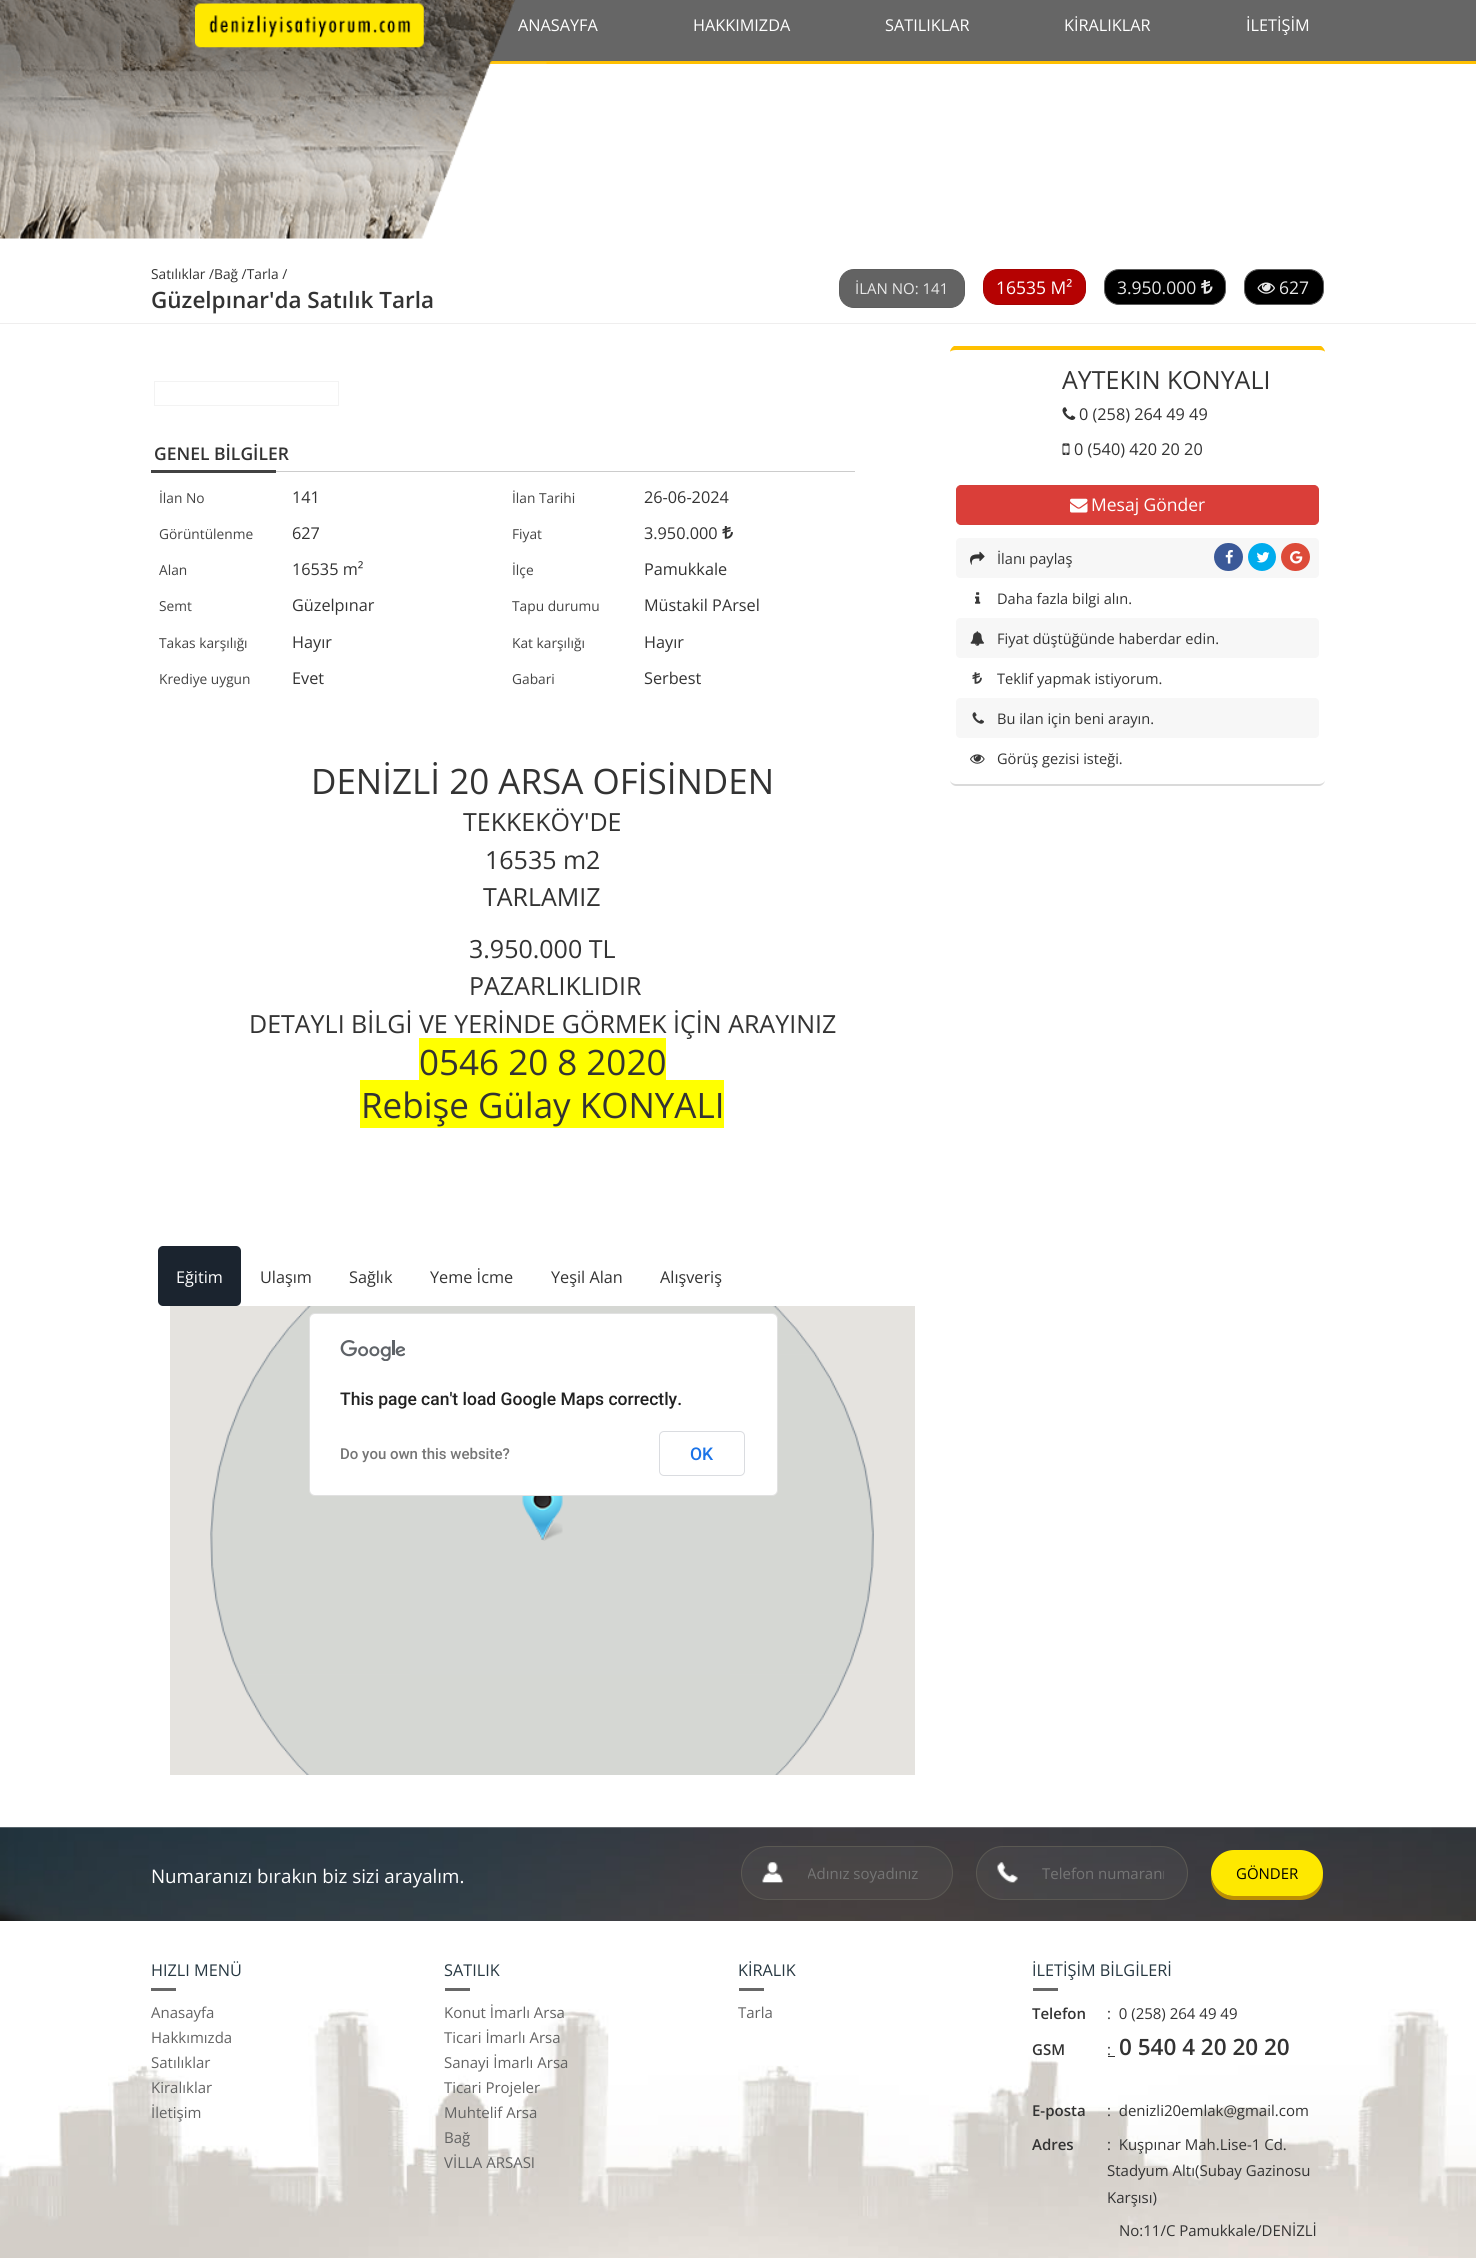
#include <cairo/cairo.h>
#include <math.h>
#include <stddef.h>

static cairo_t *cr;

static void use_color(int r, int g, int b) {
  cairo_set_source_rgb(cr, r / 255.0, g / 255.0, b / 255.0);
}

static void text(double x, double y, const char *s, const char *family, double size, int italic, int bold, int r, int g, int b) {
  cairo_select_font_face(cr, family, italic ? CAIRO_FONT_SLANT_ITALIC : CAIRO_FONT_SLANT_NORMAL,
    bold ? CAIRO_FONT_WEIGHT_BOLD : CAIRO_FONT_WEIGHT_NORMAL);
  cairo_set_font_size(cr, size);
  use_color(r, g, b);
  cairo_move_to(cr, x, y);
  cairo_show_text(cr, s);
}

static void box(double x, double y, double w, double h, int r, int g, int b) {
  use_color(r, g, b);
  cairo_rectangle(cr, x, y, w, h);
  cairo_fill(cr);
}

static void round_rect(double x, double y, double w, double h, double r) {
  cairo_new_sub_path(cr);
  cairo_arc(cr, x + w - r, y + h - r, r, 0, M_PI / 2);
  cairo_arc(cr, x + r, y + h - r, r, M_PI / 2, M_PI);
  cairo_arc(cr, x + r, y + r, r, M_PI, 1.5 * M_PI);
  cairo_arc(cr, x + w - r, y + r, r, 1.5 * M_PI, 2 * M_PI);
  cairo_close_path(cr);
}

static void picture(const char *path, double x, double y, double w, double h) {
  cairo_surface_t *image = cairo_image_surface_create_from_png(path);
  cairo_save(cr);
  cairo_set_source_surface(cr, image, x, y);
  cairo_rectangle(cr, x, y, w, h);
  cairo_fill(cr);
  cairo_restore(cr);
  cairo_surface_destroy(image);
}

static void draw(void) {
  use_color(255, 255, 255);
  cairo_paint(cr);
  box(490, 0, 986, 61, 102, 102, 102);
  box(488, 61, 988, 3, 255, 192, 0);
  box(0, 323, 1476, 1, 239, 238, 238);
  use_color(99, 99, 99);
  round_rect(839.5, 269.5, 125, 38, 14.5);
  cairo_fill_preserve(cr);
  use_color(93, 93, 93);
  cairo_set_line_width(cr, 1);
  cairo_stroke(cr);
  use_color(181, 2, 2);
  round_rect(983.5, 269.5, 102, 35, 14.5);
  cairo_fill_preserve(cr);
  use_color(165, 3, 3);
  cairo_stroke(cr);
  use_color(0, 0, 0);
  round_rect(1104.5, 269.5, 121, 35, 14.5);
  cairo_fill_preserve(cr);
  use_color(93, 93, 93);
  cairo_stroke(cr);
  picture("img_03.png", 1201, 280, 12, 14);
  use_color(0, 0, 0);
  round_rect(1244.5, 269.5, 79, 35, 14.5);
  cairo_fill_preserve(cr);
  use_color(93, 93, 93);
  cairo_stroke(cr);
  picture("img_04.png", 1257, 282, 18, 12);
  cairo_rectangle(cr, 154.5, 381.5, 184, 24);
  use_color(243, 243, 243);
  cairo_stroke(cr);
  box(276, 471, 579, 1, 204, 204, 204);
  box(151, 470, 125, 3, 66, 66, 66);
  picture("img_05.png", 722, 526, 11, 13);
  box(360, 1080, 364, 48, 255, 255, 0);
  use_color(27, 36, 47);
  round_rect(158, 1246, 83, 60, 5);
  cairo_fill(cr);
  box(170, 1306, 745, 469, 229, 227, 223);
  picture("img_08.png", 210, 1354, 200, 321);
  picture("img_06.png", 267, 1306, 143, 49);
  box(410, 1306, 320, 7, 213, 215, 211);
  picture("img_07.png", 730, 1306, 87, 49);
  box(410, 1496, 320, 179, 213, 215, 212);
  picture("img_09.png", 730, 1354, 144, 321);
  picture("img_10.png", 238, 1674, 172, 101);
  box(410, 1675, 320, 100, 213, 215, 211);
  picture("img_11.png", 730, 1674, 116, 101);
  picture("img_12.png", 522, 1496, 41, 45);
  use_color(255, 255, 255);
  round_rect(309, 1313, 469, 183, 6);
  cairo_fill(cr);
  round_rect(309.5, 1313.5, 468, 182, 5.5);
  cairo_set_source_rgba(cr, 0, 0, 0, 0.12);
  cairo_stroke(cr);
  picture("img_13.png", 340, 1340, 65, 21);
  round_rect(659.5, 1431.5, 85, 44, 4.5);
  use_color(218, 220, 224);
  cairo_stroke(cr);
  use_color(255, 192, 0);
  cairo_new_path(cr);
  cairo_move_to(cr, 956, 350);
  cairo_curve_to(cr, 953, 350, 950, 351, 950, 352);
  cairo_curve_to(cr, 950, 350, 952, 347, 954, 346);
  cairo_line_to(cr, 1321, 346);
  cairo_curve_to(cr, 1323, 347, 1325, 350, 1325, 352);
  cairo_curve_to(cr, 1325, 351, 1322, 350, 1319, 350);
  cairo_close_path(cr);
  cairo_fill(cr);
  use_color(218, 218, 218);
  cairo_new_path(cr);
  cairo_move_to(cr, 1319, 786);
  cairo_curve_to(cr, 1322, 786, 1325, 783, 1325, 780);
  cairo_curve_to(cr, 1325, 782, 1322, 784, 1319, 784);
  cairo_line_to(cr, 956, 784);
  cairo_curve_to(cr, 953, 784, 950, 782, 950, 780);
  cairo_curve_to(cr, 950, 783, 953, 786, 956, 786);
  cairo_close_path(cr);
  cairo_fill(cr);
  picture("img_14.png", 1062, 407, 14, 13);
  picture("img_15.png", 1062, 443, 8, 12);
  use_color(218, 62, 57);
  round_rect(956.5, 485.5, 362, 39, 4.5);
  cairo_fill_preserve(cr);
  use_color(212, 63, 58);
  cairo_stroke(cr);
  picture("img_16.png", 1070, 498, 18, 15);
  use_color(247, 247, 247);
  round_rect(956, 538, 363, 40, 4);
  cairo_fill(cr);
  picture("img_17.png", 970, 551, 15, 14);
  use_color(59, 89, 152);
  round_rect(1214, 543, 29, 28, 14);
  cairo_fill(cr);
  picture("img_18.png", 1225, 550, 8, 14);
  use_color(0, 172, 237);
  cairo_arc(cr, 1262, 557, 14, 0, 2 * M_PI);
  cairo_fill(cr);
  picture("img_19.png", 1256, 552, 14, 11);
  use_color(221, 75, 57);
  round_rect(1281, 543, 29, 28, 14);
  cairo_fill(cr);
  picture("img_20.png", 1290, 551, 13, 13);
  picture("img_21.png", 975, 592, 6, 12);
  use_color(247, 247, 247);
  round_rect(956, 618, 363, 40, 4);
  cairo_fill(cr);
  picture("img_22.png", 970, 631, 15, 15);
  picture("img_23.png", 972, 672, 10, 12);
  round_rect(956, 698, 363, 40, 4);
  cairo_fill(cr);
  picture("img_24.png", 972, 712, 12, 12);
  picture("img_25.png", 970, 754, 15, 10);
  picture("img_26.png", 0, 1827, 1476, 94);
  cairo_set_source_rgba(cr, 0.435, 0.435, 0.435, 0.17);
  round_rect(741.5, 1846.5, 211, 53, 26.5);
  cairo_fill_preserve(cr);
  use_color(91, 89, 83);
  cairo_stroke(cr);
  picture("img_27.png", 762, 1862, 21, 21);
  cairo_set_source_rgba(cr, 0.435, 0.435, 0.435, 0.17);
  round_rect(976.5, 1846.5, 211, 53, 26.5);
  cairo_fill_preserve(cr);
  use_color(91, 89, 83);
  cairo_stroke(cr);
  picture("img_28.png", 997, 1862, 21, 21);
  use_color(189, 143, 2);
  cairo_new_path(cr);
  cairo_move_to(cr, 1211, 1874);
  cairo_line_to(cr, 1211, 1877);
  cairo_curve_to(cr, 1211, 1890, 1221, 1900, 1234, 1900);
  cairo_line_to(cr, 1300, 1900);
  cairo_curve_to(cr, 1313, 1900, 1323, 1890, 1323, 1877);
  cairo_line_to(cr, 1322, 1872);
  cairo_line_to(cr, 1322, 1873);
  cairo_curve_to(cr, 1322, 1886, 1312, 1896, 1299, 1896);
  cairo_line_to(cr, 1234, 1896);
  cairo_curve_to(cr, 1222, 1896, 1211, 1886, 1211, 1874);
  cairo_close_path(cr);
  cairo_fill(cr);
  use_color(254, 232, 0);
  round_rect(1211, 1850, 112, 46, 23);
  cairo_fill(cr);
  picture("img_29.png", 0, 2009, 1476, 249);
  box(151, 1988, 25, 3, 103, 103, 103);
  box(445, 1988, 25, 3, 103, 103, 103);
  box(739, 1988, 25, 3, 103, 103, 103);
  box(1033, 1988, 25, 3, 103, 103, 103);
  box(1108, 2056, 7, 1, 51, 51, 51);
  text(518, 31, "ANASAYFA", "Open Sans", 16.25, 0, 0, 255, 255, 255);
  picture("img_01.png", 0, 0, 547, 239);
  picture("img_02.png", 195, 3, 229, 45);
  text(693, 31, "HAKKIMIZDA", "Open Sans", 16.25, 0, 0, 255, 255, 255);
  text(885, 31, "SATILIKLAR", "Open Sans", 16.25, 0, 0, 255, 255, 255);
  text(1064, 31, "KİRALIKLAR", "Open Sans", 16.25, 0, 0, 255, 255, 255);
  text(1246, 31, "İLETİŞİM", "Open Sans", 16.25, 0, 0, 255, 255, 255);
  text(151, 279, "Satılıklar /Bağ /Tarla /", "Open Sans", 13.75, 0, 0, 51, 51, 51);
  text(151, 308, "Güzelpınar'da Satılık Tarla", "Open Sans SemiBold", 22.5, 0, 0, 51, 51, 51);
  text(855, 294, "İLAN NO: 141", "Open Sans", 15, 0, 0, 232, 232, 232);
  text(996, 294, "16535 M²", "Open Sans", 17.5, 0, 0, 255, 255, 255);
  text(1117, 294, "3.950.000", "Open Sans", 17.5, 0, 0, 232, 232, 232);
  text(1279, 294, "627", "Open Sans", 17.5, 0, 0, 232, 232, 232);
  text(154, 460, "GENEL BİLGİLER", "Open Sans SemiBold", 17.5, 0, 0, 51, 51, 51);
  text(159, 503, "İlan No", "Open Sans", 13.75, 0, 0, 68, 68, 68);
  text(292, 503, "141", "Open Sans", 16.25, 0, 0, 51, 51, 51);
  text(512, 503, "İlan Tarihi", "Open Sans", 13.75, 0, 0, 68, 68, 68);
  text(644, 503, "26-06-2024", "Open Sans", 16.25, 0, 0, 51, 51, 51);
  text(159, 539, "Görüntülenme", "Open Sans", 13.75, 0, 0, 68, 68, 68);
  text(292, 539, "627", "Open Sans", 16.25, 0, 0, 51, 51, 51);
  text(512, 539, "Fiyat", "Open Sans", 13.75, 0, 0, 68, 68, 68);
  text(644, 539, "3.950.000", "Open Sans", 16.25, 0, 0, 51, 51, 51);
  text(159, 575, "Alan", "Open Sans", 13.75, 0, 0, 68, 68, 68);
  text(292, 575, "16535 m²", "Open Sans", 16.25, 0, 0, 51, 51, 51);
  text(512, 575, "İlçe", "Open Sans", 13.75, 0, 0, 68, 68, 68);
  text(644, 575, "Pamukkale", "Open Sans", 16.25, 0, 0, 51, 51, 51);
  text(159, 611, "Semt", "Open Sans", 13.75, 0, 0, 68, 68, 68);
  text(292, 611, "Güzelpınar", "Open Sans", 16.25, 0, 0, 51, 51, 51);
  text(512, 611, "Tapu durumu", "Open Sans", 13.75, 0, 0, 68, 68, 68);
  text(644, 611, "Müstakil PArsel", "Open Sans", 16.25, 0, 0, 51, 51, 51);
  text(159, 648, "Takas karşılığı", "Open Sans", 13.75, 0, 0, 68, 68, 68);
  text(292, 648, "Hayır", "Open Sans", 16.25, 0, 0, 51, 51, 51);
  text(512, 648, "Kat karşılığı", "Open Sans", 13.75, 0, 0, 68, 68, 68);
  text(644, 648, "Hayır", "Open Sans", 16.25, 0, 0, 51, 51, 51);
  text(159, 684, "Krediye uygun", "Open Sans", 13.75, 0, 0, 68, 68, 68);
  text(292, 684, "Evet", "Open Sans", 16.25, 0, 0, 51, 51, 51);
  text(512, 684, "Gabari", "Open Sans", 13.75, 0, 0, 68, 68, 68);
  text(644, 684, "Serbest", "Open Sans", 16.25, 0, 0, 51, 51, 51);
  text(311, 794, "DENİZLİ 20 ARSA OFİSİNDEN", "Open Sans", 35, 0, 0, 51, 51, 51);
  text(463, 831, "TEKKEKÖY'DE", "Open Sans", 25, 0, 0, 51, 51, 51);
  text(485, 869, "16535 m2", "Open Sans", 25, 0, 0, 51, 51, 51);
  text(483, 906, "TARLAMIZ", "Open Sans", 25, 0, 0, 51, 51, 51);
  text(469, 958, "3.950.000 TL", "Open Sans", 25, 0, 0, 51, 51, 51);
  text(469, 995, "PAZARLIKLIDIR", "Open Sans", 25, 0, 0, 51, 51, 51);
  text(249, 1033, "DETAYLI BİLGİ VE YERİNDE GÖRMEK İÇİN ARAYINIZ", "Open Sans", 25, 0, 0, 51, 51, 51);
  box(419, 1038, 247, 42, 255, 255, 0);
  text(419, 1075, "0546 20 8 2020", "Open Sans", 35, 0, 0, 51, 51, 51);
  text(361, 1118, "Rebişe Gülay KONYALI", "Open Sans", 35, 0, 0, 51, 51, 51);
  text(176, 1283, "Eğitim", "Open Sans", 16.25, 0, 0, 255, 255, 255);
  text(260, 1283, "Ulaşım", "Open Sans", 16.25, 0, 0, 51, 51, 51);
  text(349, 1283, "Sağlık", "Open Sans", 16.25, 0, 0, 51, 51, 51);
  text(430, 1283, "Yeme İcme", "Open Sans", 16.25, 0, 0, 51, 51, 51);
  text(551, 1283, "Yeşil Alan", "Open Sans", 16.25, 0, 0, 51, 51, 51);
  text(660, 1283, "Alışveriş", "Open Sans", 16.25, 0, 0, 51, 51, 51);
  text(340, 1405, "This page can't load Google Maps correctly.", "Roboto Medium", 17.5, 0, 0, 33, 33, 33);
  text(340, 1459, "Do you own this website?", "Roboto Medium", 15, 0, 0, 117, 117, 117);
  text(690, 1460, "OK", "Roboto Medium", 17.5, 0, 0, 26, 115, 232);
  text(1062, 389, "AYTEKIN KONYALI", "Open Sans", 25, 0, 0, 51, 51, 51);
  text(1079, 420, "0 (258) 264 49 49", "Open Sans", 16.25, 0, 0, 51, 51, 51);
  text(1074, 455, "0 (540) 420 20 20", "Open Sans", 16.25, 0, 0, 51, 51, 51);
  text(1091, 511, "Mesaj Gönder", "Open Sans", 17.5, 0, 0, 255, 255, 255);
  text(997, 564, "İlanı paylaş", "Open Sans", 14.6, 0, 0, 51, 51, 51);
  text(997, 604, "Daha fazla bilgi alın.", "Open Sans", 14.6, 0, 0, 51, 51, 51);
  text(997, 644, "Fiyat düştüğünde haberdar edin.", "Open Sans", 14.6, 0, 0, 51, 51, 51);
  text(997, 684, "Teklif yapmak istiyorum.", "Open Sans", 14.6, 0, 0, 51, 51, 51);
  text(997, 724, "Bu ilan için beni arayın.", "Open Sans", 14.6, 0, 0, 51, 51, 51);
  text(997, 764, "Görüş gezisi isteği.", "Open Sans", 14.6, 0, 0, 51, 51, 51);
  text(151, 1883, "Numaranızı bırakın biz sizi arayalım.", "Open Sans", 18.75, 0, 0, 255, 255, 255);
  cairo_save(cr);
  cairo_rectangle(cr, 808, 1863, 122, 21);
  cairo_clip(cr);
  text(807, 1879, "Adınız soyadınız", "Open Sans", 15, 0, 0, 117, 117, 117);
  cairo_restore(cr);
  cairo_save(cr);
  cairo_rectangle(cr, 1041, 1863, 123, 21);
  cairo_clip(cr);
  text(1042, 1879, "Telefon numaranı", "Open Sans", 15, 0, 0, 117, 117, 117);
  cairo_restore(cr);
  text(1236, 1879, "GÖNDER", "Open Sans", 15, 0, 0, 0, 0, 0);
  text(151, 1976, "HIZLI MENÜ", "Open Sans", 16.25, 0, 0, 39, 56, 66);
  text(151, 2018, "Anasayfa", "Open Sans", 15, 0, 0, 99, 99, 99);
  text(151, 2043, "Hakkımızda", "Open Sans", 15, 0, 0, 99, 99, 99);
  text(151, 2068, "Satılıklar", "Open Sans", 15, 0, 0, 99, 99, 99);
  text(151, 2093, "Kiralıklar", "Open Sans", 15, 0, 0, 99, 99, 99);
  text(151, 2118, "İletişim", "Open Sans", 15, 0, 0, 99, 99, 99);
  text(444, 1976, "SATILIK", "Open Sans", 16.25, 0, 0, 39, 56, 66);
  text(444, 2018, "Konut İmarlı Arsa", "Open Sans", 15, 0, 0, 99, 99, 99);
  text(444, 2043, "Ticari İmarlı Arsa", "Open Sans", 15, 0, 0, 99, 99, 99);
  text(444, 2068, "Sanayi İmarlı Arsa", "Open Sans", 15, 0, 0, 99, 99, 99);
  text(444, 2093, "Ticari Projeler", "Open Sans", 15, 0, 0, 99, 99, 99);
  text(444, 2118, "Muhtelif Arsa", "Open Sans", 15, 0, 0, 99, 99, 99);
  text(444, 2143, "Bağ", "Open Sans", 15, 0, 0, 99, 99, 99);
  text(444, 2168, "VİLLA ARSASI", "Open Sans", 15, 0, 0, 99, 99, 99);
  text(738, 1976, "KİRALIK", "Open Sans", 16.25, 0, 0, 39, 56, 66);
  text(738, 2018, "Tarla", "Open Sans", 15, 0, 0, 99, 99, 99);
  text(1032, 1976, "İLETİŞİM BİLGİLERİ", "Open Sans", 16.25, 0, 0, 39, 56, 66);
  text(1032, 2019, "Telefon", "Open Sans SemiBold", 15, 0, 0, 51, 51, 51);
  text(1107, 2019, ":  0 (258) 264 49 49", "Open Sans", 15, 0, 0, 51, 51, 51);
  text(1032, 2055, "GSM", "Open Sans SemiBold", 15, 0, 0, 51, 51, 51);
  text(1107, 2055, ":", "Open Sans", 15, 0, 0, 51, 51, 51);
  text(1119, 2055, "0 540 4 20 20 20", "Open Sans SemiBold", 22.5, 0, 0, 51, 51, 51);
  text(1032, 2116, "E-posta", "Open Sans SemiBold", 15, 0, 0, 51, 51, 51);
  text(1107, 2116, ":  denizli20emlak@gmail.com", "Open Sans", 15, 0, 0, 51, 51, 51);
  text(1032, 2150, "Adres", "Open Sans SemiBold", 15, 0, 0, 51, 51, 51);
  text(1107, 2150, ":  Kuşpınar Mah.Lise-1 Cd.", "Open Sans", 15, 0, 0, 51, 51, 51);
  text(1107, 2176, "Stadyum Altı(Subay Gazinosu", "Open Sans", 15, 0, 0, 51, 51, 51);
  text(1107, 2203, "Karşısı)", "Open Sans", 15, 0, 0, 51, 51, 51);
  text(1119, 2236, "No:11/C Pamukkale/DENİZLİ", "Open Sans", 15, 0, 0, 51, 51, 51);
}

int main(void) {
  cairo_surface_t *surface = cairo_image_surface_create(CAIRO_FORMAT_RGB24, 1476, 2258);
  cr = cairo_create(surface);
  cairo_font_options_t *options = cairo_font_options_create();
  cairo_font_options_set_hint_metrics(options, CAIRO_HINT_METRICS_OFF);
  cairo_font_options_set_hint_style(options, CAIRO_HINT_STYLE_NONE);
  cairo_set_font_options(cr, options);
  cairo_set_miter_limit(cr, 4);
  draw();
  cairo_surface_write_to_png(surface, "out.png");
  cairo_font_options_destroy(options);
  cairo_destroy(cr);
  cairo_surface_destroy(surface);
  return 0;
}
